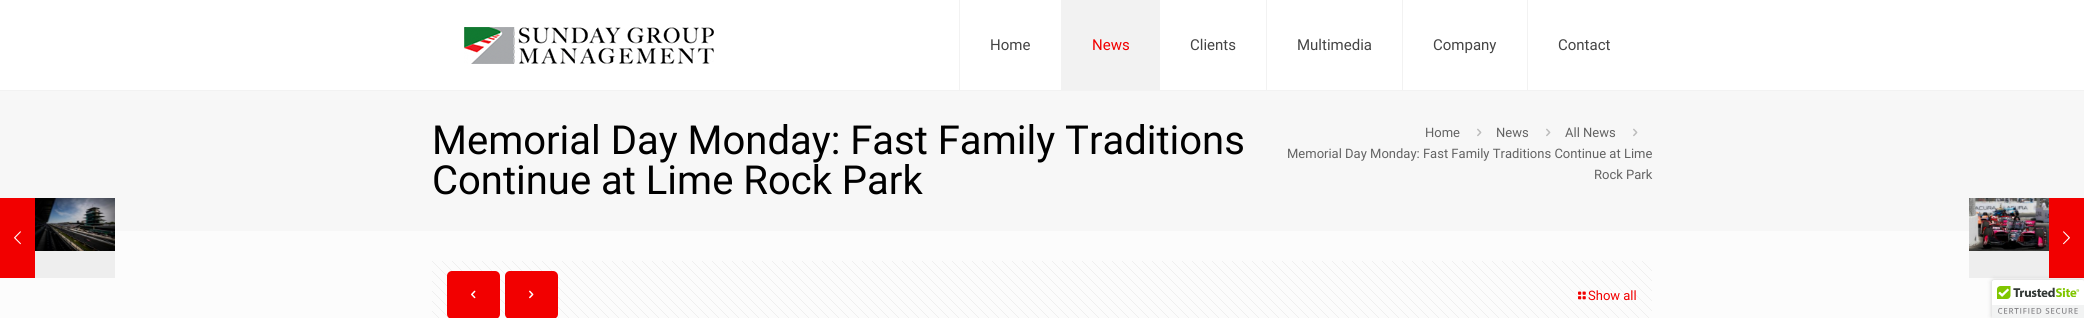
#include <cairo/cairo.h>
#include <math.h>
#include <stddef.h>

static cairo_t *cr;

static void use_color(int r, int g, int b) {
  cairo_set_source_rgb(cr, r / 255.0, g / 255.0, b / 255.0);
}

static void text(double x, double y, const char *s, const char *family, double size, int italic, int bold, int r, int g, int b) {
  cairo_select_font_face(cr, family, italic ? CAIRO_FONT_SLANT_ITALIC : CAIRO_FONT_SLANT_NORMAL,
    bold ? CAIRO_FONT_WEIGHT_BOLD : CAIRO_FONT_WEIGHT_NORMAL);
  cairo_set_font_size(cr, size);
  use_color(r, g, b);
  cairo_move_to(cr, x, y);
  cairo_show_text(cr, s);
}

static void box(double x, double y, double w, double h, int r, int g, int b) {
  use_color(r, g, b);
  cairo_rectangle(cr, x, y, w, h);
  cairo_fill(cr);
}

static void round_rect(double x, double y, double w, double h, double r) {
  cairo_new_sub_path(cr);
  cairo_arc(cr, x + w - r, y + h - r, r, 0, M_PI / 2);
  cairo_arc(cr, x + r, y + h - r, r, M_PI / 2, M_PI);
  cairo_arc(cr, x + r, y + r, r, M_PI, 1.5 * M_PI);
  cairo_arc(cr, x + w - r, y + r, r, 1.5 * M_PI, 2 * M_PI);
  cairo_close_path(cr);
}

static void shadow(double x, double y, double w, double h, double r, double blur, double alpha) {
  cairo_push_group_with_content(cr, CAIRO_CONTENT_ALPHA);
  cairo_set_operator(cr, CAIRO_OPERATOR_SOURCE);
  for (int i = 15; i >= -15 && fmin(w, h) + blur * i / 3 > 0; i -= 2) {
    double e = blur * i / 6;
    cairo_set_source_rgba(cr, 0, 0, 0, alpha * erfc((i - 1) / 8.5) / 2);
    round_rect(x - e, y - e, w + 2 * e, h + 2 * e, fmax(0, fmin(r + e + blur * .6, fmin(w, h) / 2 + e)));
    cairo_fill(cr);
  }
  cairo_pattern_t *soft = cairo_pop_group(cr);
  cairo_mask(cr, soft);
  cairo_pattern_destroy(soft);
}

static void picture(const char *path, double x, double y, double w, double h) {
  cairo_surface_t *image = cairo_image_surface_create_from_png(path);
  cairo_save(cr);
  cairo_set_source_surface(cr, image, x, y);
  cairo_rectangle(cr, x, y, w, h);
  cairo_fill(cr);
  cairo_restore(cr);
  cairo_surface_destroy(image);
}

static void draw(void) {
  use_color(252, 252, 252);
  cairo_paint(cr);
  box(0, 91, 2084, 140, 247, 247, 247);
  box(0, 198, 35, 80, 242, 0, 0);
  picture("img_01.png", 14, 231, 7, 14);
  box(35, 251, 80, 27, 238, 238, 238);
  picture("img_02.png", 35, 198, 80, 53);
  box(0, 0, 2084, 90, 255, 255, 255);
  box(0, 90, 2084, 1, 242, 242, 242);
  picture("img_03.png", 464, 27, 250, 37);
  box(1061, 0, 99, 90, 242, 242, 242);
  box(959, 0, 1, 90, 242, 242, 242);
  box(1266, 0, 1, 90, 242, 242, 242);
  box(1402, 0, 1, 90, 242, 242, 242);
  box(1527, 0, 1, 90, 242, 242, 242);
  picture("img_04.png", 1477, 128, 5, 9);
  picture("img_04.png", 1546, 128, 5, 9);
  picture("img_04.png", 1633, 128, 5, 9);
  picture("img_05.png", 432, 261, 1220, 57);
  use_color(242, 0, 0);
  round_rect(447, 271, 53, 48, 5);
  cairo_fill(cr);
  picture("img_06.png", 471, 290, 5, 9);
  round_rect(505, 271, 53, 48, 5);
  cairo_fill(cr);
  picture("img_07.png", 529, 290, 5, 9);
  picture("img_08.png", 1578, 291, 8, 9);
  box(1969, 251, 80, 27, 238, 238, 238);
  picture("img_09.png", 1969, 198, 80, 53);
  box(2049, 198, 35, 80, 242, 0, 0);
  picture("img_10.png", 2063, 231, 7, 14);
  use_color(0, 0, 0);
  shadow(1992, 280, 92, 38, 2, 2.5, 0.2);
  use_color(255, 255, 255);
  cairo_new_path(cr);
  cairo_move_to(cr, 1994, 280);
  cairo_line_to(cr, 2084, 280);
  cairo_line_to(cr, 2084, 318);
  cairo_line_to(cr, 1992, 318);
  cairo_line_to(cr, 1992, 282);
  cairo_curve_to(cr, 1992, 281, 1993, 280, 1994, 280);
  cairo_close_path(cr);
  cairo_fill(cr);
  picture("img_11.png", 1992, 280, 92, 38);
  text(990, 50, "Home", "Roboto", 15, 0, 0, 68, 68, 68);
  text(1092, 50, "News", "Roboto", 15, 0, 0, 242, 0, 0);
  text(1190, 50, "Clients", "Roboto", 15, 0, 0, 68, 68, 68);
  text(1297, 50, "Multimedia", "Roboto", 15, 0, 0, 68, 68, 68);
  text(1433, 50, "Company", "Roboto", 15, 0, 0, 68, 68, 68);
  text(1558, 50, "Contact", "Roboto", 15, 0, 0, 68, 68, 68);
  text(432, 154, "Memorial Day Monday: Fast Family Traditions", "Roboto", 40, 0, 0, 0, 0, 0);
  text(432, 194, "Continue at Lime Rock Park", "Roboto", 40, 0, 0, 0, 0, 0);
  text(1425, 137, "Home", "Roboto", 13, 0, 0, 99, 99, 99);
  text(1496, 137, "News", "Roboto", 13, 0, 0, 99, 99, 99);
  text(1565, 137, "All News", "Roboto", 13, 0, 0, 99, 99, 99);
  text(1287, 158, "Memorial Day Monday: Fast Family Traditions Continue at Lime", "Roboto", 13, 0, 0, 99, 99, 99);
  text(1594, 179, "Rock Park", "Roboto", 13, 0, 0, 99, 99, 99);
  text(1588, 300, "Show all", "Roboto", 13, 0, 0, 242, 0, 0);
}

int main(void) {
  cairo_surface_t *surface = cairo_image_surface_create(CAIRO_FORMAT_RGB24, 2084, 318);
  cr = cairo_create(surface);
  cairo_font_options_t *options = cairo_font_options_create();
  cairo_font_options_set_hint_metrics(options, CAIRO_HINT_METRICS_OFF);
  cairo_font_options_set_hint_style(options, CAIRO_HINT_STYLE_NONE);
  cairo_set_font_options(cr, options);
  cairo_set_miter_limit(cr, 4);
  draw();
  cairo_surface_write_to_png(surface, "out.png");
  cairo_font_options_destroy(options);
  cairo_destroy(cr);
  cairo_surface_destroy(surface);
  return 0;
}
